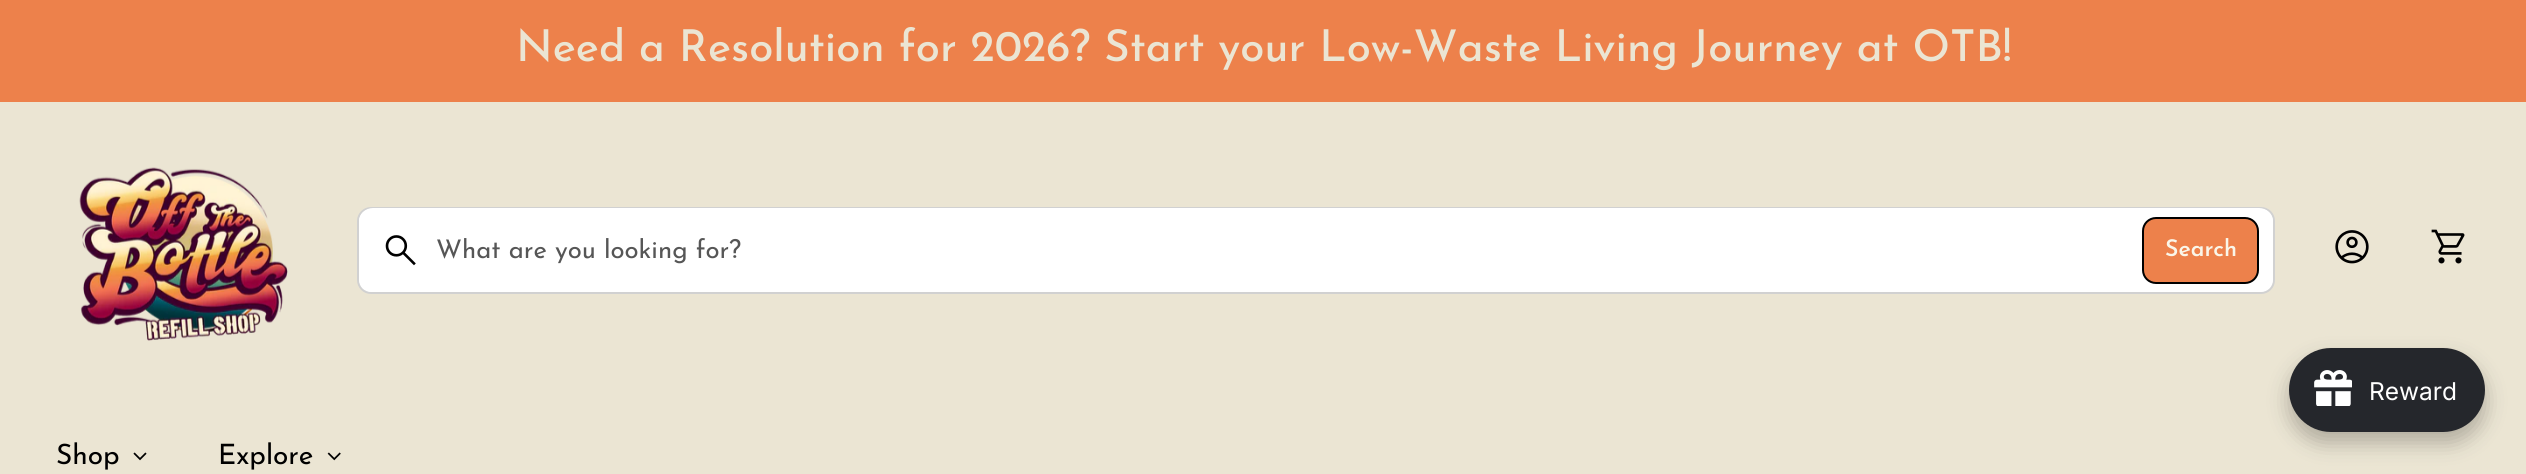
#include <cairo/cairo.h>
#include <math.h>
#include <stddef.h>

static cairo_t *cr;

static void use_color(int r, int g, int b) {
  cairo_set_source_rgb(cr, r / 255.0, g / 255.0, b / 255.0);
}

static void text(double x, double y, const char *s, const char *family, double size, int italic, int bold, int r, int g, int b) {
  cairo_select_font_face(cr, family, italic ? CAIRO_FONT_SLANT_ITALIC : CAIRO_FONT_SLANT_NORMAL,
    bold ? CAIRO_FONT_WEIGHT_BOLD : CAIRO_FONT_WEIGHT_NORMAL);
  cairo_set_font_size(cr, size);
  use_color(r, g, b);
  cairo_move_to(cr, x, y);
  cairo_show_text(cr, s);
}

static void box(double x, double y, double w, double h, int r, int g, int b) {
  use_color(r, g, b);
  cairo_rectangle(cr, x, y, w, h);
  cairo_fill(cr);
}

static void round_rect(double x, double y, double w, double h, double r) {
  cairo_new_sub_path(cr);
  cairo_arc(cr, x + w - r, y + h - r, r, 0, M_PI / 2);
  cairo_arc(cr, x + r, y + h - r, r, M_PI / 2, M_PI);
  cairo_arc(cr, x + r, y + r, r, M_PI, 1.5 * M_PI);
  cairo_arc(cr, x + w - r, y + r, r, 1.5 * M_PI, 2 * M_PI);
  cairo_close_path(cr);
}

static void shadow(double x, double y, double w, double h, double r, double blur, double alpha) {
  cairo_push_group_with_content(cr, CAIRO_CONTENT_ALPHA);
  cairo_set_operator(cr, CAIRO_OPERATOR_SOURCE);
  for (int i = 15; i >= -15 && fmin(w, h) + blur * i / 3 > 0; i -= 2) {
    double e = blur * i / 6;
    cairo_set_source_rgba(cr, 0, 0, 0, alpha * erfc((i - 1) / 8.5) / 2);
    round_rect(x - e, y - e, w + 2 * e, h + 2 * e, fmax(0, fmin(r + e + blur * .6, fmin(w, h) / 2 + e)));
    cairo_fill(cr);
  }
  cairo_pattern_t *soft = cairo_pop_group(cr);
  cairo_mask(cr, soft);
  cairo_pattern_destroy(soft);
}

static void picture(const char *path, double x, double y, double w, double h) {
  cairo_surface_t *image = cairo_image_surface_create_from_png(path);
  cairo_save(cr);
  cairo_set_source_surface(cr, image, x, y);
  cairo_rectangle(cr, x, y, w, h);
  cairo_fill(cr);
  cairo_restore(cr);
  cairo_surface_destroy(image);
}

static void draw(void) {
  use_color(235, 229, 211);
  cairo_paint(cr);
  box(0, 0, 2526, 102, 237, 129, 75);
  picture("img_01.png", 79, 167, 209, 174);
  use_color(255, 255, 255);
  round_rect(358, 208, 1916, 85, 13);
  cairo_fill_preserve(cr);
  use_color(209, 209, 209);
  cairo_stroke(cr);
  use_color(255, 255, 255);
  round_rect(359, 208, 1914, 84, 14);
  cairo_fill(cr);
  picture("img_02.png", 385, 235, 31, 31);
  use_color(237, 129, 75);
  round_rect(2143, 218, 115, 65, 13);
  cairo_fill_preserve(cr);
  use_color(0, 0, 0);
  cairo_stroke(cr);
  picture("img_03.png", 2335, 230, 34, 34);
  picture("img_04.png", 2431, 229, 34, 35);
  picture("img_05.png", 133, 452, 14, 9);
  picture("img_06.png", 327, 452, 14, 9);
  use_color(0, 0, 0);
  shadow(2289, 359, 196, 84, 42, 10.5, 0.25);
  use_color(37, 39, 44);
  round_rect(2289, 348, 196, 84, 42);
  cairo_fill(cr);
  picture("img_07.png", 2314, 370, 38, 36);
  text(516, 61, "Need a Resolution for 2026? Start your Low-Waste Living Journey at OTB!", "Josefin Sans Medium", 43.75, 0, 0, 235, 229, 211);
  text(436, 258, "What are you looking for?", "Josefin Sans", 25.75, 0, 0, 86, 86, 86);
  text(2165, 256, "Search", "Josefin Sans SemiBold", 23, 0, 0, 250, 246, 233);
  text(56, 464, "Shop", "Josefin Sans", 28, 0, 0, 0, 0, 0);
  text(218, 464, "Explore", "Josefin Sans", 28, 0, 0, 0, 0, 0);
  text(2369, 400, "Reward", "Inter", 24.5, 0, 0, 255, 255, 255);
}

int main(void) {
  cairo_surface_t *surface = cairo_image_surface_create(CAIRO_FORMAT_RGB24, 2526, 474);
  cr = cairo_create(surface);
  cairo_font_options_t *options = cairo_font_options_create();
  cairo_font_options_set_hint_metrics(options, CAIRO_HINT_METRICS_OFF);
  cairo_font_options_set_hint_style(options, CAIRO_HINT_STYLE_NONE);
  cairo_set_font_options(cr, options);
  cairo_set_miter_limit(cr, 4);
  draw();
  cairo_surface_write_to_png(surface, "out.png");
  cairo_font_options_destroy(options);
  cairo_destroy(cr);
  cairo_surface_destroy(surface);
  return 0;
}
